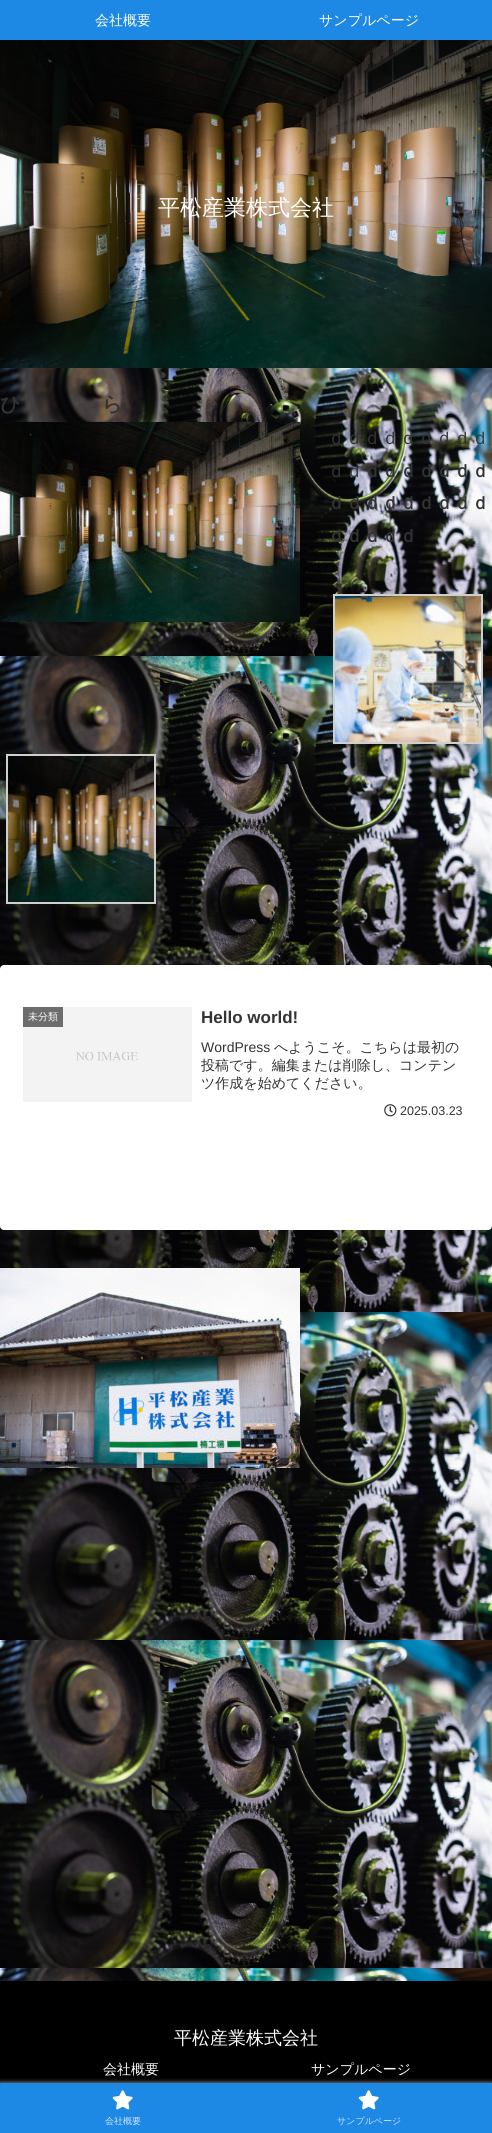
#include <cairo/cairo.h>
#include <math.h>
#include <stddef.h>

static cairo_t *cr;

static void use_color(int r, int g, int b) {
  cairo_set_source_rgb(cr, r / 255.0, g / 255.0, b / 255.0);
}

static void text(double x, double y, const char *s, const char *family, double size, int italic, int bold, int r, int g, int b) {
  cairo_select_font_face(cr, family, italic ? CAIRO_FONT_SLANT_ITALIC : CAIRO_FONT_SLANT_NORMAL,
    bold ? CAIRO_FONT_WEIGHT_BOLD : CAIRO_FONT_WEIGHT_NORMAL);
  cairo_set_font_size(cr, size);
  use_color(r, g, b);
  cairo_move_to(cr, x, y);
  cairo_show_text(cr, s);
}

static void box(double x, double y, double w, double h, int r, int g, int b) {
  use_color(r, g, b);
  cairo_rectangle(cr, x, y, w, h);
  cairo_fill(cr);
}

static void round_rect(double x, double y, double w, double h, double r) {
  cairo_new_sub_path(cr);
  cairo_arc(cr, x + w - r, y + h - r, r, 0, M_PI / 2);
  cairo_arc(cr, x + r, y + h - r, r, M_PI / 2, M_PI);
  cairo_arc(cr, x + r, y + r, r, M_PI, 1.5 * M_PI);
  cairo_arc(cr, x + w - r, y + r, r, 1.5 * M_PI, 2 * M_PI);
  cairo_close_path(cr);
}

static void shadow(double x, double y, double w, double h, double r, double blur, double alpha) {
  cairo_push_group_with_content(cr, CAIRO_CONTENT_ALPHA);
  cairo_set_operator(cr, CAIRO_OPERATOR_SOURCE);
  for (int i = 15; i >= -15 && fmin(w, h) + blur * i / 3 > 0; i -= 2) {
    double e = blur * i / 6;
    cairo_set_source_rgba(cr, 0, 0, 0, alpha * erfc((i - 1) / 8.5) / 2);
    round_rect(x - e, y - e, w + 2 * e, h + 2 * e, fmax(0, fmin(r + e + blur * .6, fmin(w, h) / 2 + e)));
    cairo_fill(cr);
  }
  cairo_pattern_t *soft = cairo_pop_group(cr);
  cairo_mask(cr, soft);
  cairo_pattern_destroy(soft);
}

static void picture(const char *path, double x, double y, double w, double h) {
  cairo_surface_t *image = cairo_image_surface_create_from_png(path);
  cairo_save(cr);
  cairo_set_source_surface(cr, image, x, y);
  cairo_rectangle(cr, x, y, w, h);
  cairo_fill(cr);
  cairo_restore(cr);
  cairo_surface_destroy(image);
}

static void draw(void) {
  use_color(255, 255, 255);
  cairo_paint(cr);
  picture("img_01.png", 0, 368, 492, 1613);
  box(0, 0, 492, 40, 30, 136, 229);
  picture("img_02.png", 0, 40, 492, 328);
  picture("img_03.png", 0, 422, 300, 200);
  cairo_rectangle(cr, 334, 595, 148, 148);
  use_color(207, 207, 207);
  cairo_stroke(cr);
  picture("img_04.png", 335, 596, 146, 146);
  cairo_rectangle(cr, 7, 755, 148, 148);
  cairo_stroke(cr);
  picture("img_05.png", 8, 756, 146, 146);
  use_color(255, 255, 255);
  round_rect(0, 965, 492, 265, 4);
  cairo_fill(cr);
  picture("img_06.png", 23, 1007, 169, 95);
  box(23, 1007, 40, 20, 109, 109, 109);
  picture("img_07.png", 384, 1104, 13, 13);
  picture("img_08.png", 0, 1268, 300, 200);
  box(0, 1981, 492, 102, 0, 0, 0);
  use_color(169, 169, 169);
  shadow(0, 2083, 492, 50, 0, 2.5, 1);
  box(0, 2083, 492, 50, 30, 136, 229);
  picture("img_09.png", 112, 2090, 21, 20);
  picture("img_09.png", 358, 2090, 21, 20);
  text(95, 25, "会社概要", "WenQuanYi Zen Hei Medium", 14, 0, 0, 255, 255, 255);
  text(319, 25, "サンプルページ", "WenQuanYi Zen Hei Medium", 14, 0, 0, 255, 255, 255);
  text(158, 215, "平松産業株式会社", "WenQuanYi Zen Hei Medium", 22, 0, 0, 255, 255, 255);
  text(0, 411, "ひ", "WenQuanYi Zen Hei", 20, 0, 1, 51, 51, 51);
  text(102, 411, "ら", "WenQuanYi Zen Hei", 20, 0, 1, 51, 51, 51);
  text(327, 444, "ｄｄｄｄｄｄｄｄｄ", "WenQuanYi Zen Hei Medium", 18, 0, 0, 51, 51, 51);
  text(327, 477, "ｄｄ", "WenQuanYi Zen Hei Medium", 18, 0, 0, 51, 51, 51);
  text(363, 477, "ｄｄｄｄｄｄｄ", "WenQuanYi Zen Hei", 18, 0, 1, 51, 51, 51);
  text(327, 509, "ｄｄｄｄｄｄｄｄｄ", "WenQuanYi Zen Hei", 18, 0, 1, 51, 51, 51);
  text(327, 542, "ｄｄｄｄｄ", "WenQuanYi Zen Hei", 18, 0, 1, 51, 51, 51);
  text(28, 1020, "未分類", "WenQuanYi Zen Hei Medium", 10, 0, 0, 255, 255, 255);
  text(201, 1023, "Hello world!", "Liberation Sans", 17, 0, 1, 51, 51, 51);
  text(201, 1052, "WordPress", "Liberation Sans", 14, 0, 0, 51, 51, 51);
  text(274, 1052, "へようこそ。こちらは最初の", "WenQuanYi Zen Hei Medium", 14, 0, 0, 51, 51, 51);
  text(201, 1070, "投稿です。編集または削除し、コンテン", "WenQuanYi Zen Hei Medium", 14, 0, 0, 51, 51, 51);
  text(201, 1088, "ツ作成を始めてください。", "WenQuanYi Zen Hei Medium", 14, 0, 0, 51, 51, 51);
  text(400, 1115, "2025.03.23", "Liberation Sans", 12.5, 0, 0, 51, 51, 51);
  text(174, 2044, "平松産業株式会社", "WenQuanYi Zen Hei Medium", 18, 0, 0, 255, 255, 255);
  text(103, 2074, "会社概要", "WenQuanYi Zen Hei Medium", 14, 0, 0, 255, 255, 255);
  text(311, 2074, "サンプルページ", "WenQuanYi Zen Hei Medium", 14, 0, 0, 255, 255, 255);
  text(105, 2124, "会社概要", "WenQuanYi Zen Hei Medium", 9, 0, 0, 210, 231, 250);
  text(337, 2124, "サンプルページ", "WenQuanYi Zen Hei Medium", 9, 0, 0, 210, 231, 250);
}

int main(void) {
  cairo_surface_t *surface = cairo_image_surface_create(CAIRO_FORMAT_RGB24, 492, 2133);
  cr = cairo_create(surface);
  cairo_font_options_t *options = cairo_font_options_create();
  cairo_font_options_set_hint_metrics(options, CAIRO_HINT_METRICS_OFF);
  cairo_font_options_set_hint_style(options, CAIRO_HINT_STYLE_NONE);
  cairo_set_font_options(cr, options);
  cairo_set_miter_limit(cr, 4);
  draw();
  cairo_surface_write_to_png(surface, "out.png");
  cairo_font_options_destroy(options);
  cairo_destroy(cr);
  cairo_surface_destroy(surface);
  return 0;
}
